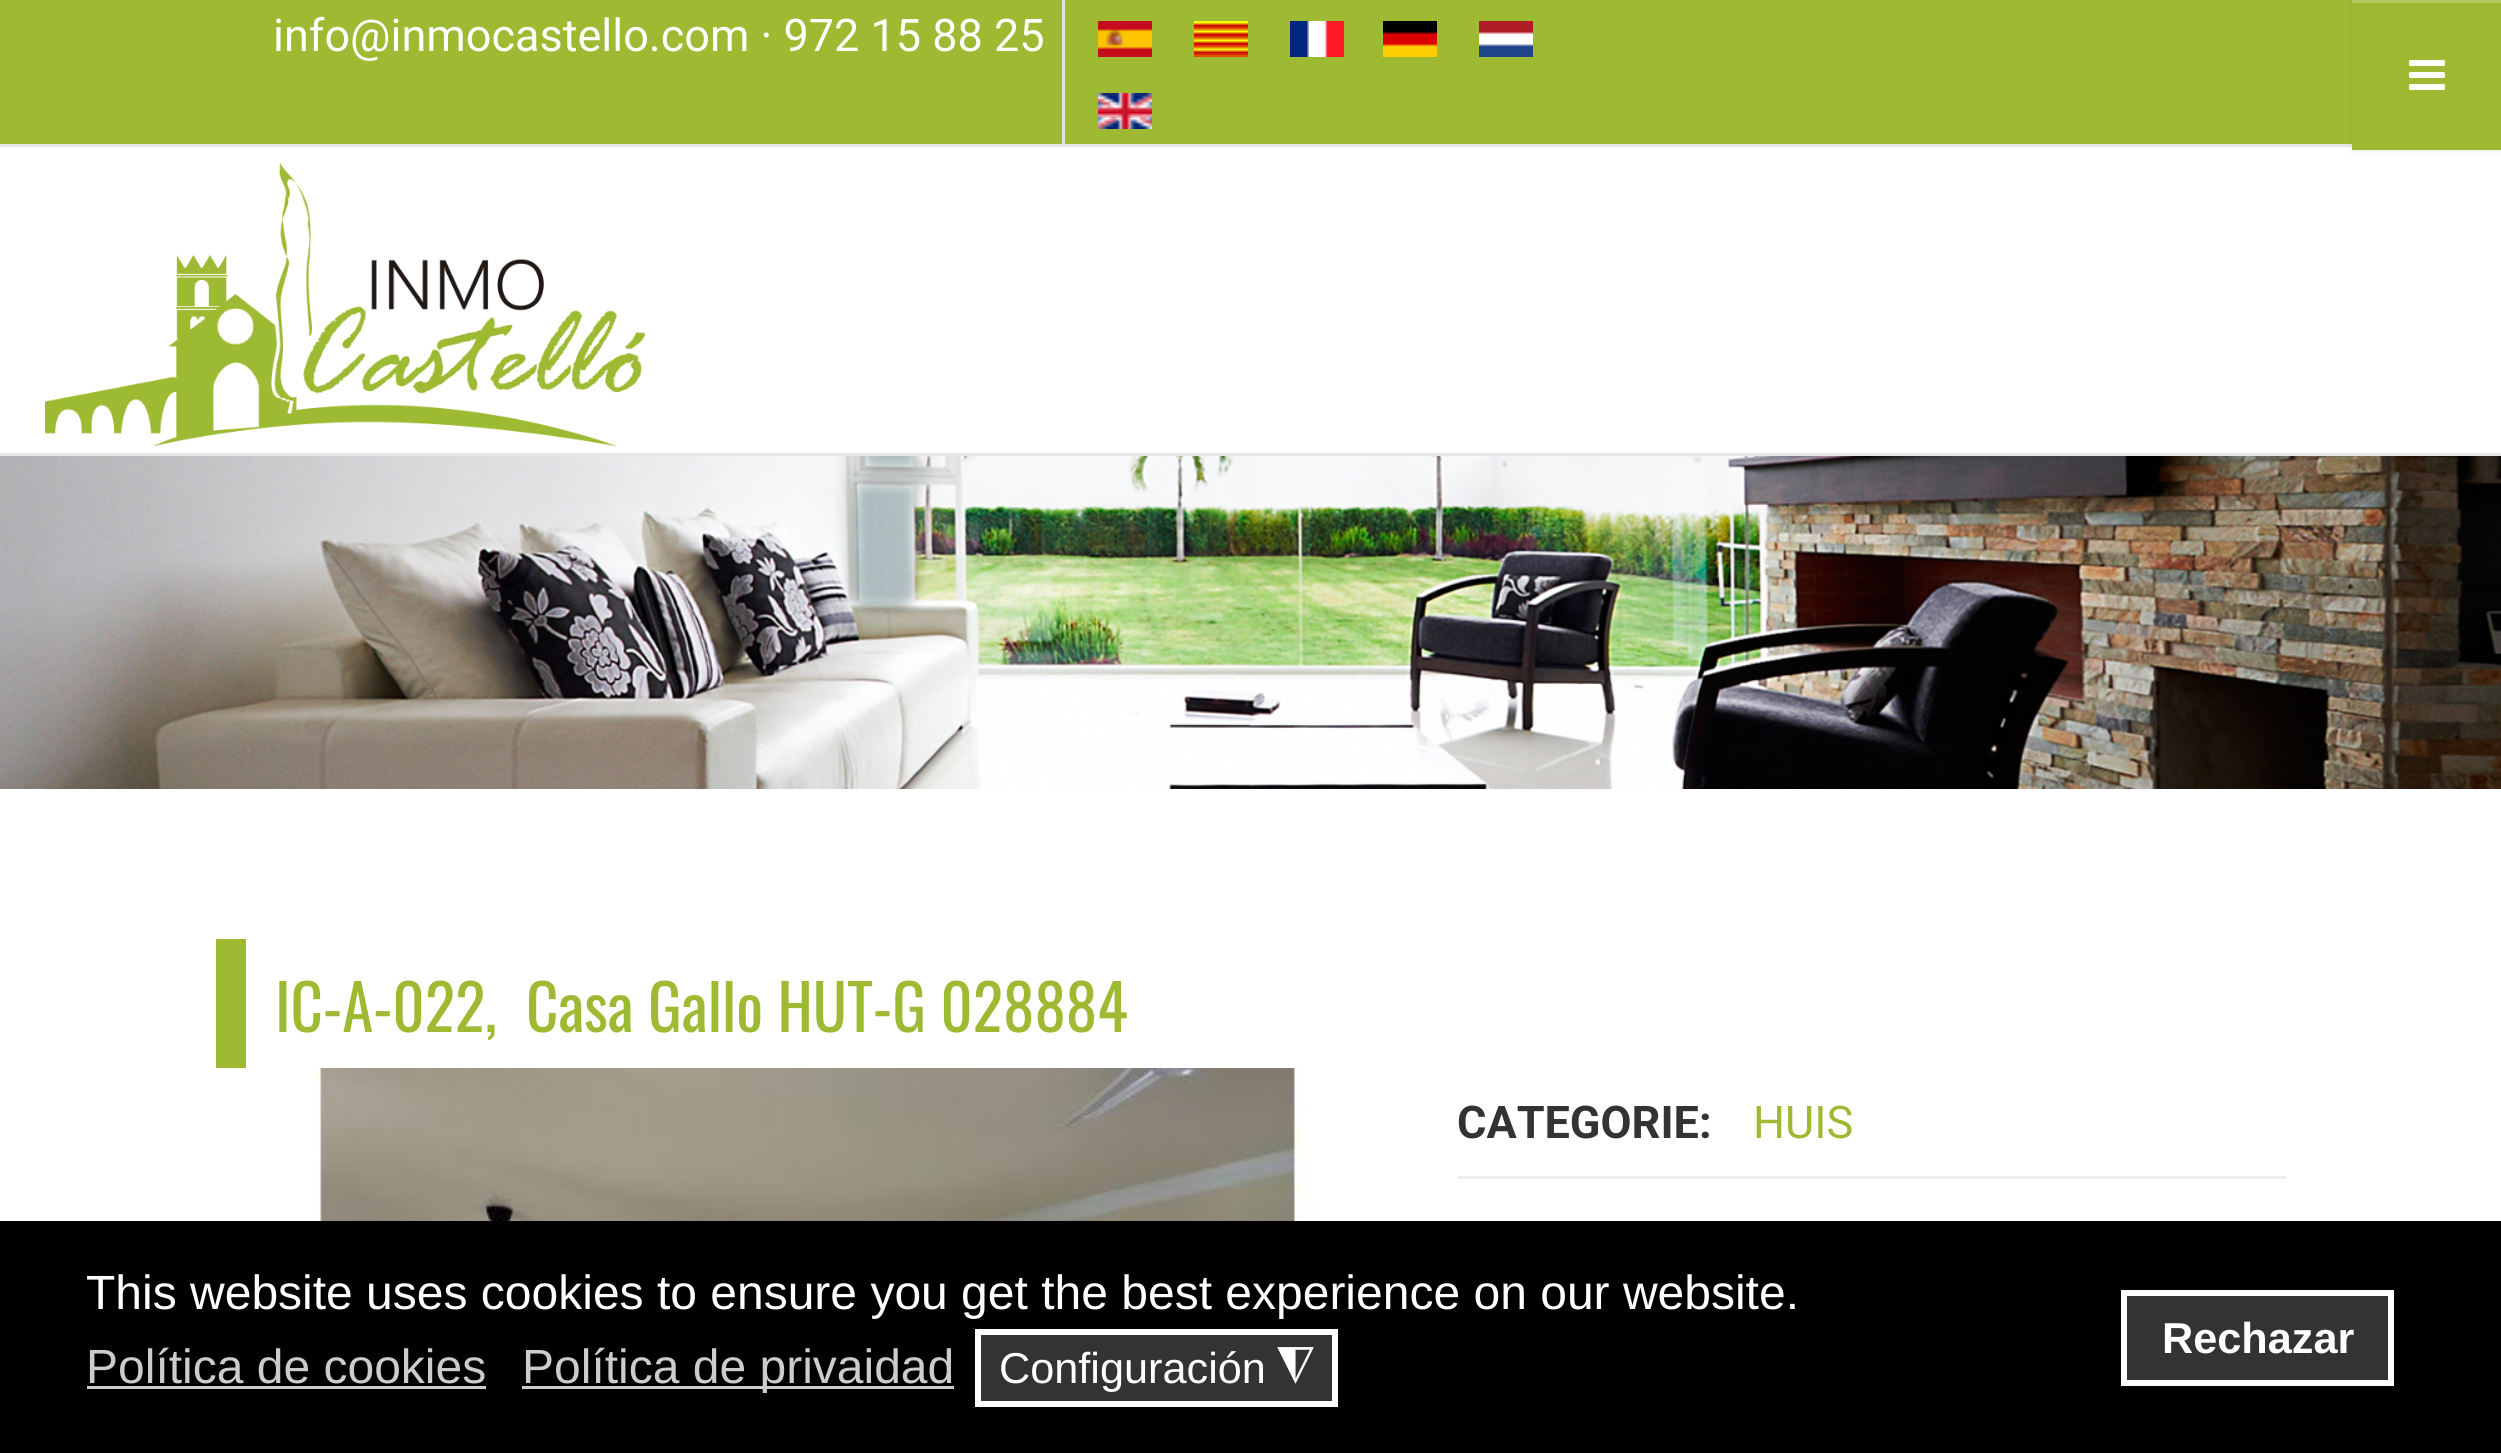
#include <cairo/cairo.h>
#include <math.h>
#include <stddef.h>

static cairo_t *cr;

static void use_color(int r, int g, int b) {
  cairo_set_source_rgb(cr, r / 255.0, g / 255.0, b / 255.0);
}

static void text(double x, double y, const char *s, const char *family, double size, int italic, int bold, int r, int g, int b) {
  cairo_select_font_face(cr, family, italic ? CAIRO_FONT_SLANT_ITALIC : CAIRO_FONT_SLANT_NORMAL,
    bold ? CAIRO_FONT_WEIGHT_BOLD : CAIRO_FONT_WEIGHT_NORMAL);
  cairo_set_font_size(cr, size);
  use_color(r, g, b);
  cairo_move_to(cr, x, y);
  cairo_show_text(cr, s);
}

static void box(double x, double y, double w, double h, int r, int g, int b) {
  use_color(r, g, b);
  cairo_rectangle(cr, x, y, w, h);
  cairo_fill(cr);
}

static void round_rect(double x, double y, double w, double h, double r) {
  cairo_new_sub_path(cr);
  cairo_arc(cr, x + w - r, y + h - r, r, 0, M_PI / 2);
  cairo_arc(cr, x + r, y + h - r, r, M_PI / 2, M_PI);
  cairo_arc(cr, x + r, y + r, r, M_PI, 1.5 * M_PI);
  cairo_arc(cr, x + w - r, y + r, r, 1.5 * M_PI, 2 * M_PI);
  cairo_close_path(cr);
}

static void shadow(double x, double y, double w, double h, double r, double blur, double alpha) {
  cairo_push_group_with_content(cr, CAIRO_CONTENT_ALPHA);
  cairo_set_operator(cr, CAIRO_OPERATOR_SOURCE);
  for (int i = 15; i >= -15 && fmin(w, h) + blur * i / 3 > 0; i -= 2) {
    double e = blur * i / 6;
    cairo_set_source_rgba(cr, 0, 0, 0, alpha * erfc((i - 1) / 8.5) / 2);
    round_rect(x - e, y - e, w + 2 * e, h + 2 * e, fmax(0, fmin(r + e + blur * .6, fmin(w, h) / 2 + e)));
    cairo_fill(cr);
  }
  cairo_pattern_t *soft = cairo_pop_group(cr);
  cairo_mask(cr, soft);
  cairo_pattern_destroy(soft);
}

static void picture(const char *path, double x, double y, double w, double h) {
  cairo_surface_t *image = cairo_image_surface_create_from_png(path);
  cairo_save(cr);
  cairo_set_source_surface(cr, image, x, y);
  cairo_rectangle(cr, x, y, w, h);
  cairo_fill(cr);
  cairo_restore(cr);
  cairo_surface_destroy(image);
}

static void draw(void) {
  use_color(255, 255, 255);
  cairo_paint(cr);
  box(0, 0, 2352, 144, 157, 186, 50);
  box(1062, 0, 3, 144, 225, 225, 225);
  picture("img_01.png", 1098, 21, 54, 36);
  picture("img_02.png", 1194, 21, 54, 36);
  picture("img_03.png", 1290, 21, 54, 36);
  picture("img_04.png", 1383, 21, 54, 36);
  picture("img_05.png", 1479, 21, 54, 36);
  picture("img_06.png", 1098, 93, 54, 36);
  box(0, 144, 2352, 3, 231, 231, 231);
  use_color(0, 0, 0);
  shadow(2352, 3, 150, 150, 0, 3, 0.05);
  box(2352, 3, 149, 147, 157, 186, 50);
  box(2352, 0, 149, 3, 177, 200, 91);
  picture("img_07.png", 2409, 60, 36, 30);
  box(0, 453, 2501, 3, 231, 231, 231);
  picture("img_08.png", 45, 162, 600, 285);
  picture("img_09.png", 0, 456, 2501, 333);
  box(216, 939, 30, 129, 157, 186, 50);
  picture("img_10.png", 313, 1068, 1001, 153);
  box(1458, 1176, 828, 3, 238, 238, 238);
  box(0, 1221, 2501, 232, 0, 0, 0);
  box(87, 1386, 399, 3, 204, 204, 204);
  box(522, 1386, 432, 3, 204, 204, 204);
  use_color(51, 51, 51);
  cairo_rectangle(cr, 978, 1332, 357, 72);
  cairo_fill_preserve(cr);
  use_color(255, 255, 255);
  cairo_set_line_width(cr, 6);
  cairo_stroke(cr);
  use_color(51, 51, 51);
  cairo_rectangle(cr, 2124, 1293, 267, 90);
  cairo_fill_preserve(cr);
  use_color(255, 255, 255);
  cairo_stroke(cr);
  text(273, 51, "info@inmocastello.com · 972 15 88 25", "Roboto", 45, 0, 0, 255, 255, 255);
  text(275, 1032, "IC-A-022,", "Oswald", 63, 0, 0, 157, 186, 50);
  text(526, 1032, "Casa Gallo HUT-G 028884", "Oswald", 63, 0, 0, 157, 186, 50);
  text(1457, 1138, "CATEGORIE:", "Roboto", 45, 0, 1, 51, 51, 51);
  text(1753, 1138, "HUIS", "Roboto", 45, 0, 0, 157, 186, 50);
  text(86, 1309, "This website uses cookies to ensure you get the best experience on our website.", "Liberation Sans", 48, 0, 0, 255, 255, 255);
  text(86, 1383, "Política de cookies", "Liberation Sans", 48, 0, 0, 204, 204, 204);
  text(522, 1383, "Política de privaidad", "Liberation Sans", 48, 0, 0, 204, 204, 204);
  text(999, 1383, "Configuración", "Liberation Sans", 43.25, 0, 0, 255, 255, 255);
  cairo_save(cr);
  cairo_translate(cr, 1314, 1353);
  cairo_rotate(cr, 180 * M_PI / 180);
  text(0, 0, "◮", "DejaVu Sans", 48, 0, 0, 255, 255, 255);
  cairo_restore(cr);
  text(2162, 1353, "Rechazar", "Liberation Sans", 43.25, 0, 1, 255, 255, 255);
}

int main(void) {
  cairo_surface_t *surface = cairo_image_surface_create(CAIRO_FORMAT_RGB24, 2501, 1453);
  cr = cairo_create(surface);
  cairo_font_options_t *options = cairo_font_options_create();
  cairo_font_options_set_hint_metrics(options, CAIRO_HINT_METRICS_OFF);
  cairo_font_options_set_hint_style(options, CAIRO_HINT_STYLE_NONE);
  cairo_set_font_options(cr, options);
  cairo_set_miter_limit(cr, 4);
  draw();
  cairo_surface_write_to_png(surface, "out.png");
  cairo_font_options_destroy(options);
  cairo_destroy(cr);
  cairo_surface_destroy(surface);
  return 0;
}
